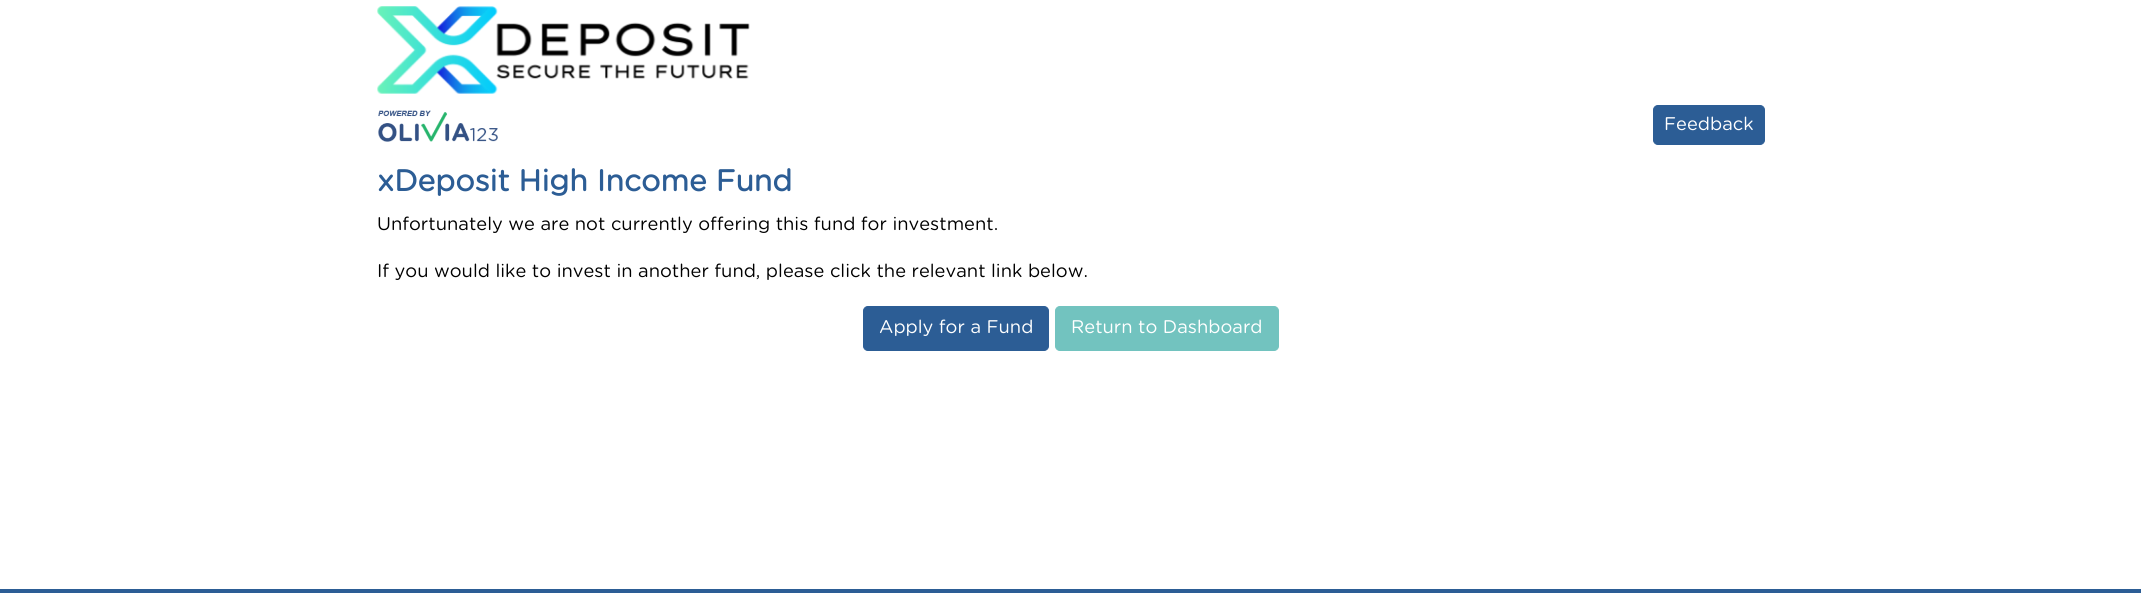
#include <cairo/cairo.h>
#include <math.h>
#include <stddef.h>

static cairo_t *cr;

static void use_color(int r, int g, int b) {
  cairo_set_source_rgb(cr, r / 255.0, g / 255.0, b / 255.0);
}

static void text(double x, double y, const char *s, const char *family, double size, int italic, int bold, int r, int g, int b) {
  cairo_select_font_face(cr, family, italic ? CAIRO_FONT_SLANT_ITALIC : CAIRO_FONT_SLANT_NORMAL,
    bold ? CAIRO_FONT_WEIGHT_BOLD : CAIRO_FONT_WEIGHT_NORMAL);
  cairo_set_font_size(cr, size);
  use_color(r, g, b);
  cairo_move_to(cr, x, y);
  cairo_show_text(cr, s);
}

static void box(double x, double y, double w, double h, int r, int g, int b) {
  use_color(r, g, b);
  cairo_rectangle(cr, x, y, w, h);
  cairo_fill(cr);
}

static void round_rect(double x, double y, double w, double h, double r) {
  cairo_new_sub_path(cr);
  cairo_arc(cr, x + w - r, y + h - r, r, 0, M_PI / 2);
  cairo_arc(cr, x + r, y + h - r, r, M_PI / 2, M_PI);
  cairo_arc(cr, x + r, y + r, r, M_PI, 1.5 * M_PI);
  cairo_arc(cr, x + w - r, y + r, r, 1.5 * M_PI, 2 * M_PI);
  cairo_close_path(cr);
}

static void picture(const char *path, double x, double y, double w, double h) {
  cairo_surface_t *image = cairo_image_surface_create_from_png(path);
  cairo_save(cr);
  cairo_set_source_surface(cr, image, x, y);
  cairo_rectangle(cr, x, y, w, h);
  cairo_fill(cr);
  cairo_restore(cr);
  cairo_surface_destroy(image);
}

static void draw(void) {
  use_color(255, 255, 255);
  cairo_paint(cr);
  picture("img_01.png", 377, 6, 373, 88);
  picture("img_02.png", 378, 110, 120, 32);
  use_color(44, 93, 149);
  round_rect(1653.5, 105.5, 111, 39, 4.5);
  cairo_fill_preserve(cr);
  cairo_set_line_width(cr, 1);
  cairo_stroke(cr);
  round_rect(863.5, 306.5, 185, 44, 4.5);
  cairo_fill_preserve(cr);
  cairo_stroke(cr);
  use_color(114, 195, 191);
  round_rect(1055.5, 306.5, 223, 44, 4.5);
  cairo_fill_preserve(cr);
  cairo_stroke(cr);
  box(0, 589, 2141, 4, 44, 93, 149);
  text(1664, 130, "Feedback", "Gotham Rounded", 18.35, 0, 0, 255, 255, 255);
  text(377, 191, "xDeposit High Income Fund", "Gotham Rounded", 30, 0, 1, 44, 93, 149);
  text(377, 230, "Unfortunately we are not currently offering this fund for investment.", "Gotham Rounded", 18.35, 0, 0, 0, 0, 0);
  text(377, 277, "If you would like to invest in another fund, please click the relevant link below.", "Gotham Rounded", 18.35, 0, 0, 0, 0, 0);
  text(879, 333, "Apply for a Fund", "Gotham Rounded", 18.35, 0, 0, 255, 255, 255);
  text(1071, 333, "Return to Dashboard", "Gotham Rounded", 18.35, 0, 0, 255, 255, 255);
}

int main(void) {
  cairo_surface_t *surface = cairo_image_surface_create(CAIRO_FORMAT_RGB24, 2141, 593);
  cr = cairo_create(surface);
  cairo_font_options_t *options = cairo_font_options_create();
  cairo_font_options_set_hint_metrics(options, CAIRO_HINT_METRICS_OFF);
  cairo_font_options_set_hint_style(options, CAIRO_HINT_STYLE_NONE);
  cairo_set_font_options(cr, options);
  cairo_set_miter_limit(cr, 4);
  draw();
  cairo_surface_write_to_png(surface, "out.png");
  cairo_font_options_destroy(options);
  cairo_destroy(cr);
  cairo_surface_destroy(surface);
  return 0;
}
